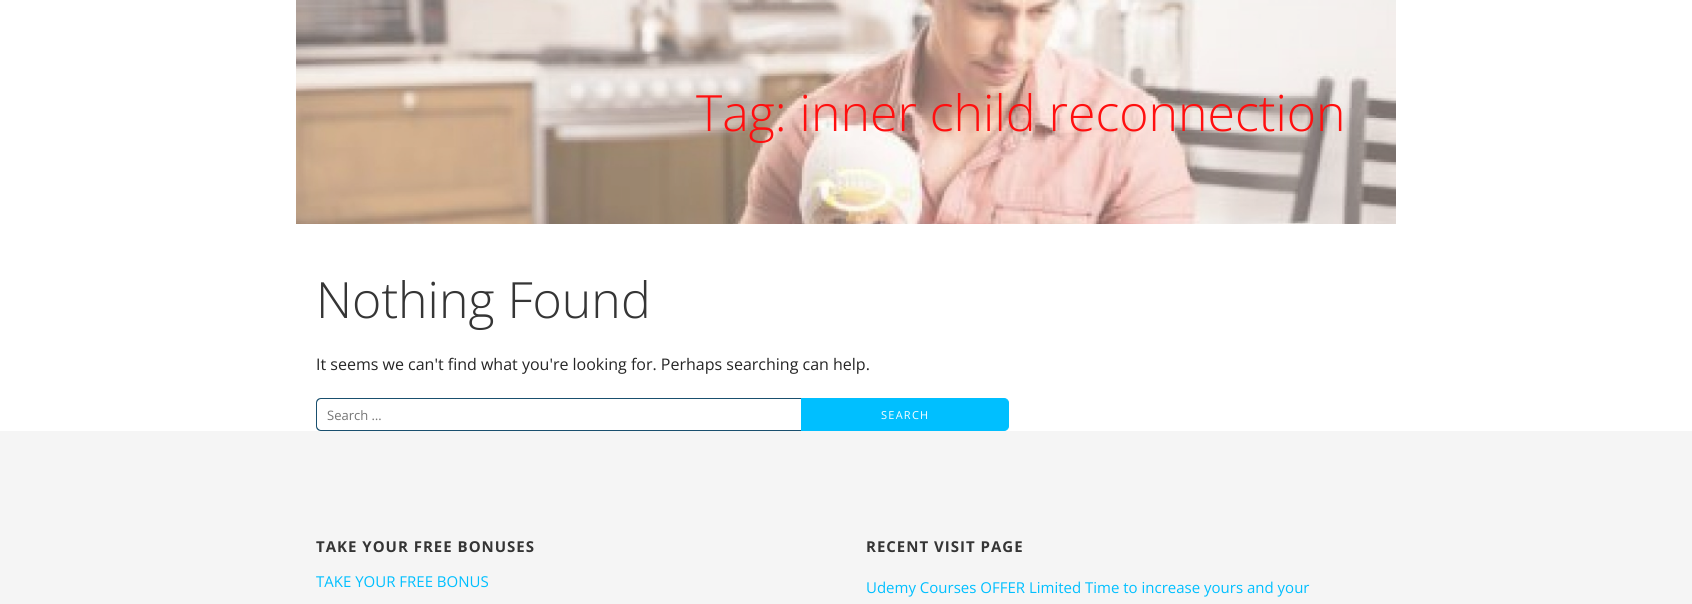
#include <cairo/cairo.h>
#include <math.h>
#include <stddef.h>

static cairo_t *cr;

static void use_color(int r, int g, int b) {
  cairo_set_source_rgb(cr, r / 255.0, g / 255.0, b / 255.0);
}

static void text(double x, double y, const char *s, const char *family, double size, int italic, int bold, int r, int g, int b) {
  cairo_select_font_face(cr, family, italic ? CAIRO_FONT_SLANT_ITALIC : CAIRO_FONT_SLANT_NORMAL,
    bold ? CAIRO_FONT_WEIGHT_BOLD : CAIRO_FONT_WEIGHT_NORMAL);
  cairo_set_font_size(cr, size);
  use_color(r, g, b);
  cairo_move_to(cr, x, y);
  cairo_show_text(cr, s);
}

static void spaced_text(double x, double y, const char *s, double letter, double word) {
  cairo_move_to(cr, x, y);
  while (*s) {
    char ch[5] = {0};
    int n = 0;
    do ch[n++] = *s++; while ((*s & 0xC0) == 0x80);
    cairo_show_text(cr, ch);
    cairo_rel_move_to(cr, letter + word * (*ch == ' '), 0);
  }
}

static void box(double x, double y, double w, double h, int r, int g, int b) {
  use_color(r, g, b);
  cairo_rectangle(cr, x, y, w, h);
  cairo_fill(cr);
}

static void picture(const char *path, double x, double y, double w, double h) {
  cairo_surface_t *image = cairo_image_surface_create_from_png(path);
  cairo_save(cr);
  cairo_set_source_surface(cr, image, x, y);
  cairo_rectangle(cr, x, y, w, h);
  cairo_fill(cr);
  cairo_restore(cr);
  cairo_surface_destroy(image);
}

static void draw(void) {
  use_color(255, 255, 255);
  cairo_paint(cr);
  picture("img_01.png", 296, 0, 1100, 224);
  use_color(25, 79, 110);
  cairo_set_fill_rule(cr, CAIRO_FILL_RULE_EVEN_ODD);
  cairo_new_path(cr);
  cairo_move_to(cr, 321, 398);
  cairo_line_to(cr, 801, 398);
  cairo_line_to(cr, 801, 431);
  cairo_line_to(cr, 321, 431);
  cairo_curve_to(cr, 318, 431, 316, 429, 316, 426);
  cairo_line_to(cr, 316, 403);
  cairo_curve_to(cr, 316, 400, 318, 398, 321, 398);
  cairo_close_path(cr);
  cairo_move_to(cr, 321, 399);
  cairo_line_to(cr, 801, 399);
  cairo_line_to(cr, 801, 430);
  cairo_line_to(cr, 321, 430);
  cairo_curve_to(cr, 319, 430, 317, 428, 317, 426);
  cairo_line_to(cr, 317, 403);
  cairo_curve_to(cr, 317, 401, 319, 399, 321, 399);
  cairo_close_path(cr);
  cairo_fill(cr);
  use_color(0, 191, 255);
  cairo_new_path(cr);
  cairo_move_to(cr, 801.5, 398.5);
  cairo_line_to(cr, 1004, 398.5);
  cairo_curve_to(cr, 1006.5, 398.5, 1008.5, 400.5, 1008.5, 403);
  cairo_line_to(cr, 1008.5, 426);
  cairo_curve_to(cr, 1008.5, 428.5, 1006.5, 430.5, 1004, 430.5);
  cairo_line_to(cr, 801.5, 430.5);
  cairo_close_path(cr);
  cairo_fill_preserve(cr);
  cairo_set_line_width(cr, 1);
  cairo_stroke(cr);
  box(0, 431, 1692, 173, 245, 245, 245);
  text(696, 131, "Tag: inner child reconnection", "Open Sans Light", 50, 0, 0, 255, 15, 15);
  text(316, 318, "Nothing Found", "Open Sans Light", 50, 0, 0, 53, 53, 53);
  text(316, 370, "It seems we can't find what you're looking for. Perhaps searching can help.", "Open Sans", 16, 0, 0, 37, 37, 37);
  text(327, 420, "Search …", "Open Sans", 13, 0, 0, 117, 117, 117);
  cairo_set_font_size(cr, 11);
  use_color(255, 255, 255);
  spaced_text(881, 419, "SEARCH", 1.25, 0);
  cairo_select_font_face(cr, "Open Sans", CAIRO_FONT_SLANT_NORMAL, CAIRO_FONT_WEIGHT_BOLD);
  cairo_set_font_size(cr, 15);
  use_color(53, 53, 53);
  spaced_text(316, 552, "TAKE YOUR FREE BONUSES", 1, 0);
  text(316, 587, "TAKE YOUR FREE BONUS", "Open Sans", 15, 0, 0, 0, 191, 255);
  cairo_select_font_face(cr, "Open Sans", CAIRO_FONT_SLANT_NORMAL, CAIRO_FONT_WEIGHT_BOLD);
  use_color(53, 53, 53);
  spaced_text(866, 552, "RECENT VISIT PAGE", 1, 0);
  text(866, 593, "Udemy Courses OFFER Limited Time to increase yours and your", "Open Sans", 15, 0, 0, 0, 191, 255);
}

int main(void) {
  cairo_surface_t *surface = cairo_image_surface_create(CAIRO_FORMAT_RGB24, 1692, 604);
  cr = cairo_create(surface);
  cairo_font_options_t *options = cairo_font_options_create();
  cairo_font_options_set_hint_metrics(options, CAIRO_HINT_METRICS_OFF);
  cairo_font_options_set_hint_style(options, CAIRO_HINT_STYLE_NONE);
  cairo_set_font_options(cr, options);
  cairo_set_miter_limit(cr, 4);
  draw();
  cairo_surface_write_to_png(surface, "out.png");
  cairo_font_options_destroy(options);
  cairo_destroy(cr);
  cairo_surface_destroy(surface);
  return 0;
}
